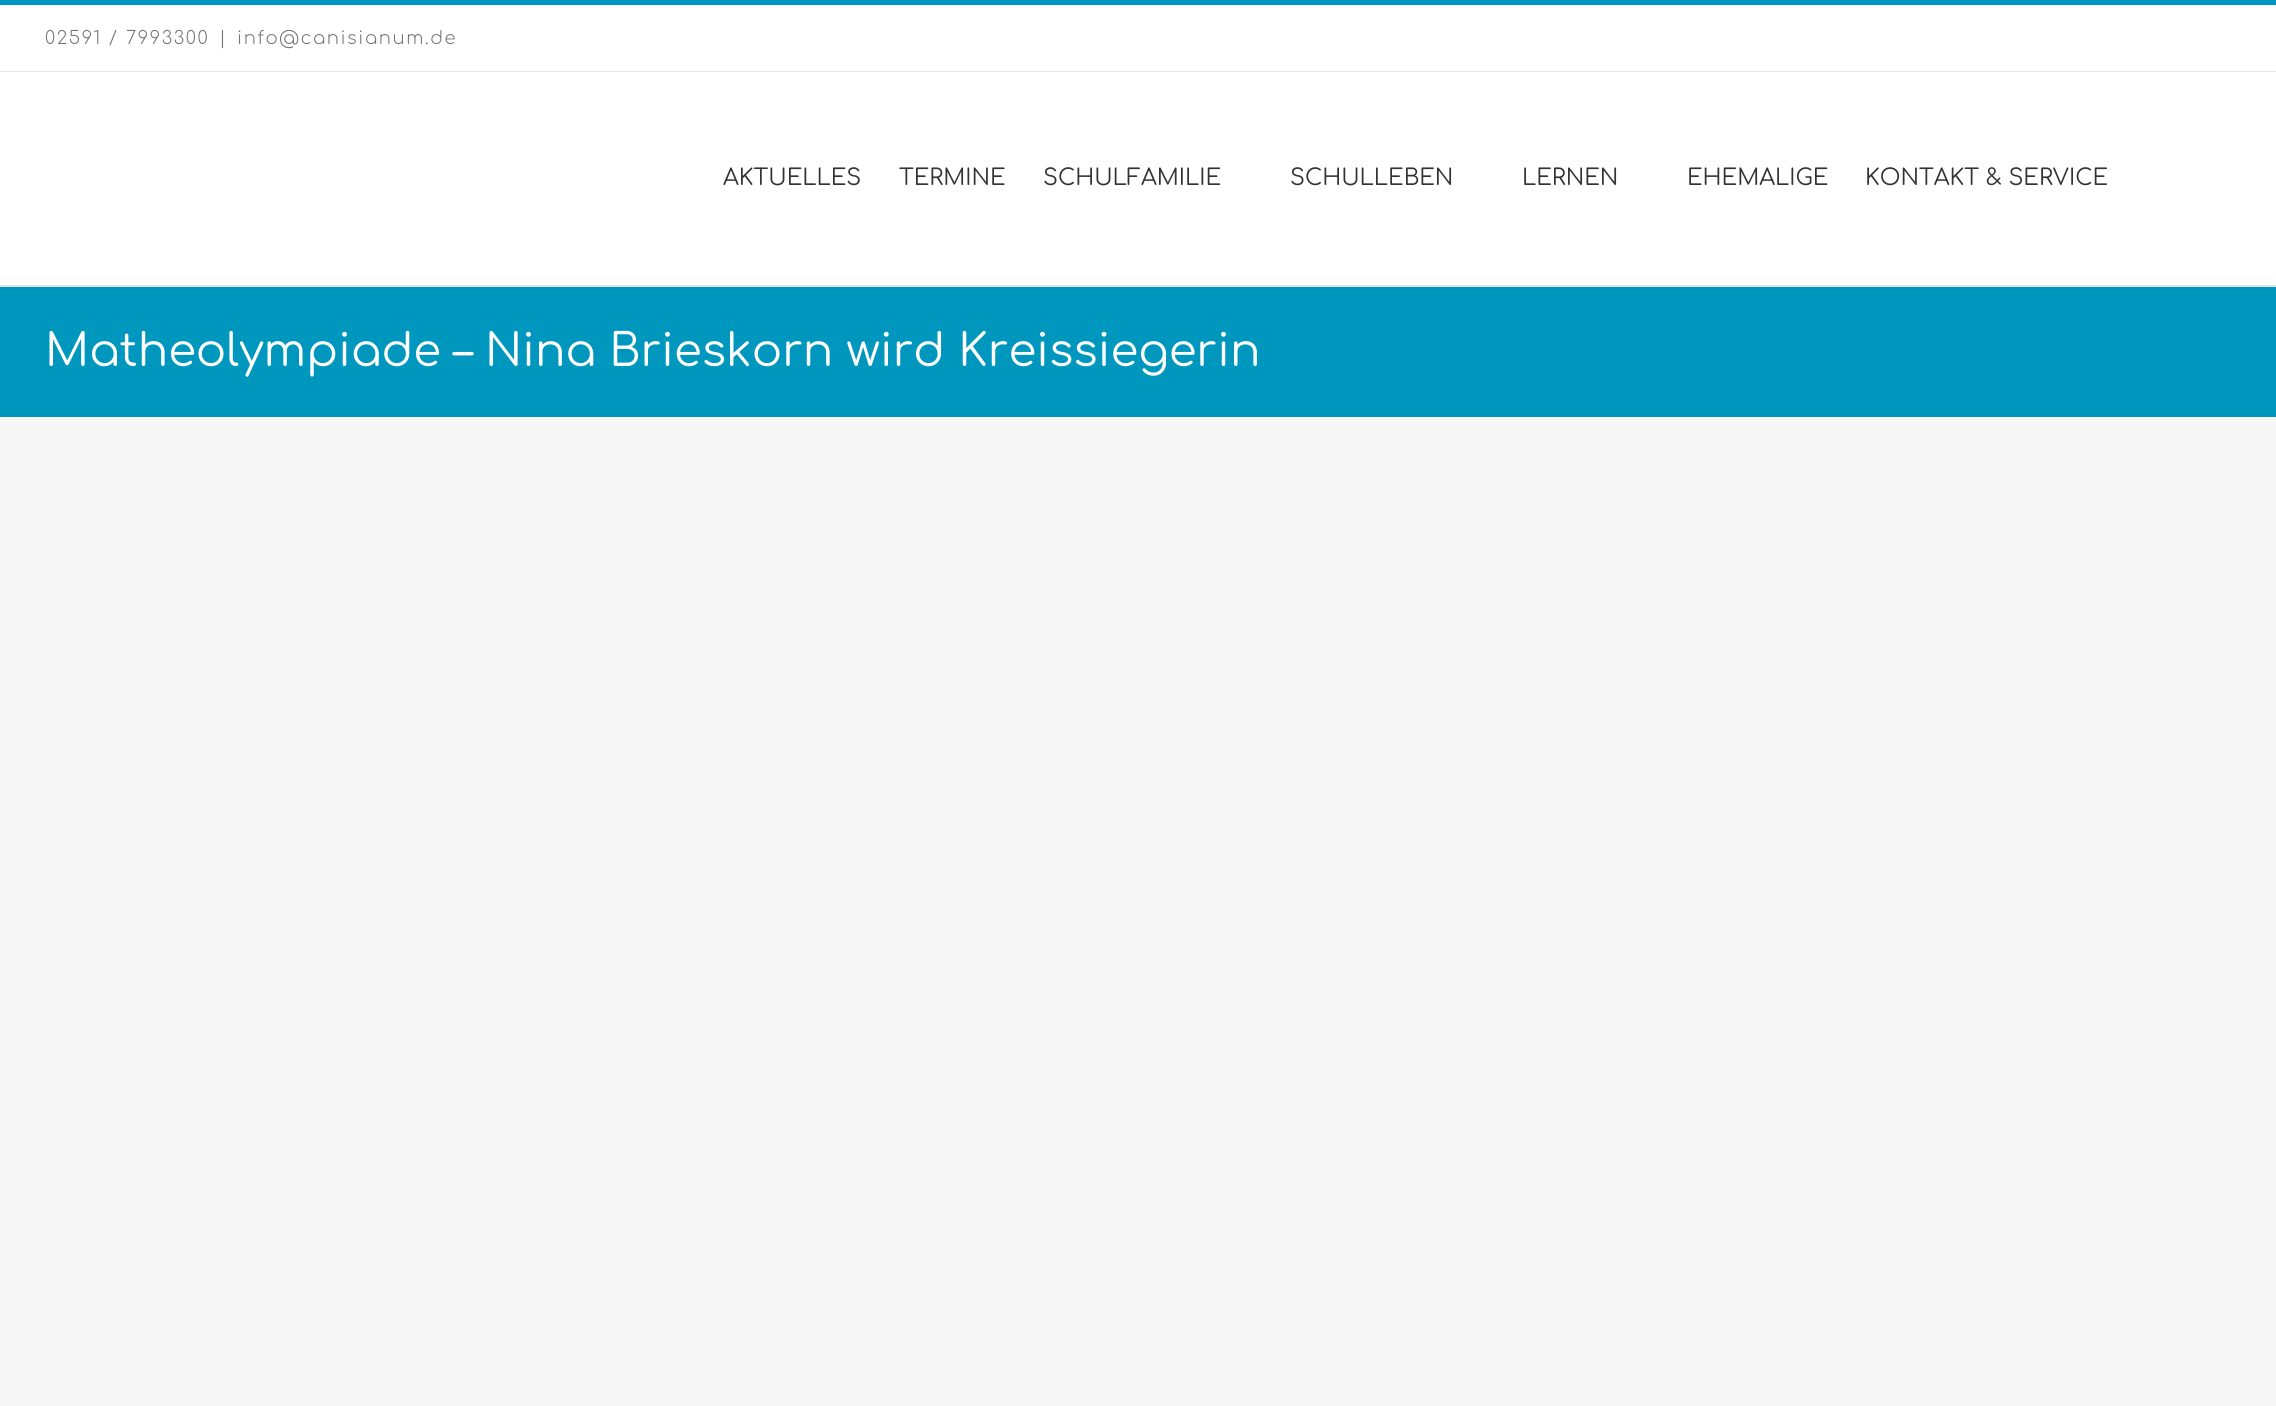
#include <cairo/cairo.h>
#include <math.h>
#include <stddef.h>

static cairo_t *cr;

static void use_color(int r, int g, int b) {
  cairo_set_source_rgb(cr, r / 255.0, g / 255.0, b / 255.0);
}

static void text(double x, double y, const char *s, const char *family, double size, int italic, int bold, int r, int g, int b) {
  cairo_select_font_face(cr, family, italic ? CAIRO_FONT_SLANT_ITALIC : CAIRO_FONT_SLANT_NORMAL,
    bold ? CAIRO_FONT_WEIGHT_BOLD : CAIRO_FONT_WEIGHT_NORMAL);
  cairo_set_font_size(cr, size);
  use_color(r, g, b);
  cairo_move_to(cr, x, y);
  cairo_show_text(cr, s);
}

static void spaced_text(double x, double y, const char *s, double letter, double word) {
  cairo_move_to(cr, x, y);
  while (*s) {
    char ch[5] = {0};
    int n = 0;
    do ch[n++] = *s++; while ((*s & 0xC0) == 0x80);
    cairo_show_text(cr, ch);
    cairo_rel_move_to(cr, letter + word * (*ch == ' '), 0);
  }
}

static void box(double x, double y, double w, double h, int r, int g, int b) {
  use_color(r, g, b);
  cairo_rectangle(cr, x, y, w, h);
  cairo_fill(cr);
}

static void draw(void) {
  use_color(0, 151, 190);
  cairo_paint(cr);
  box(0, 5, 2276, 66, 255, 255, 255);
  box(0, 71, 2276, 1, 229, 229, 229);
  box(0, 72, 2276, 213, 255, 255, 255);
  box(0, 285, 2276, 2, 229, 229, 229);
  box(0, 417, 2276, 989, 247, 247, 247);
  cairo_select_font_face(cr, "Comfortaa Light", CAIRO_FONT_SLANT_NORMAL, CAIRO_FONT_WEIGHT_NORMAL);
  cairo_set_font_size(cr, 18);
  use_color(116, 116, 116);
  spaced_text(45, 44, "02591 / 7993300", 1.6, 0);
  spaced_text(219, 44, "|", 1.6, 0);
  spaced_text(237, 44, "info@canisianum.de", 1.6, 0);
  text(723, 185, "AKTUELLES", "Comfortaa", 22.5, 0, 0, 51, 51, 51);
  text(899, 185, "TERMINE", "Comfortaa", 22.5, 0, 0, 51, 51, 51);
  text(1043, 185, "SCHULFAMILIE", "Comfortaa", 22.5, 0, 0, 51, 51, 51);
  text(1290, 185, "SCHULLEBEN", "Comfortaa", 22.5, 0, 0, 51, 51, 51);
  text(1522, 185, "LERNEN", "Comfortaa", 22.5, 0, 0, 51, 51, 51);
  text(1687, 185, "EHEMALIGE", "Comfortaa", 22.5, 0, 0, 51, 51, 51);
  text(1865, 185, "KONTAKT & SERVICE", "Comfortaa", 22.5, 0, 0, 51, 51, 51);
  text(45, 366, "Matheolympiade – Nina Brieskorn wird Kreissiegerin", "Comfortaa", 45, 0, 0, 255, 255, 255);
}

int main(void) {
  cairo_surface_t *surface = cairo_image_surface_create(CAIRO_FORMAT_RGB24, 2276, 1406);
  cr = cairo_create(surface);
  cairo_font_options_t *options = cairo_font_options_create();
  cairo_font_options_set_hint_metrics(options, CAIRO_HINT_METRICS_OFF);
  cairo_font_options_set_hint_style(options, CAIRO_HINT_STYLE_NONE);
  cairo_set_font_options(cr, options);
  cairo_set_miter_limit(cr, 4);
  draw();
  cairo_surface_write_to_png(surface, "out.png");
  cairo_font_options_destroy(options);
  cairo_destroy(cr);
  cairo_surface_destroy(surface);
  return 0;
}
